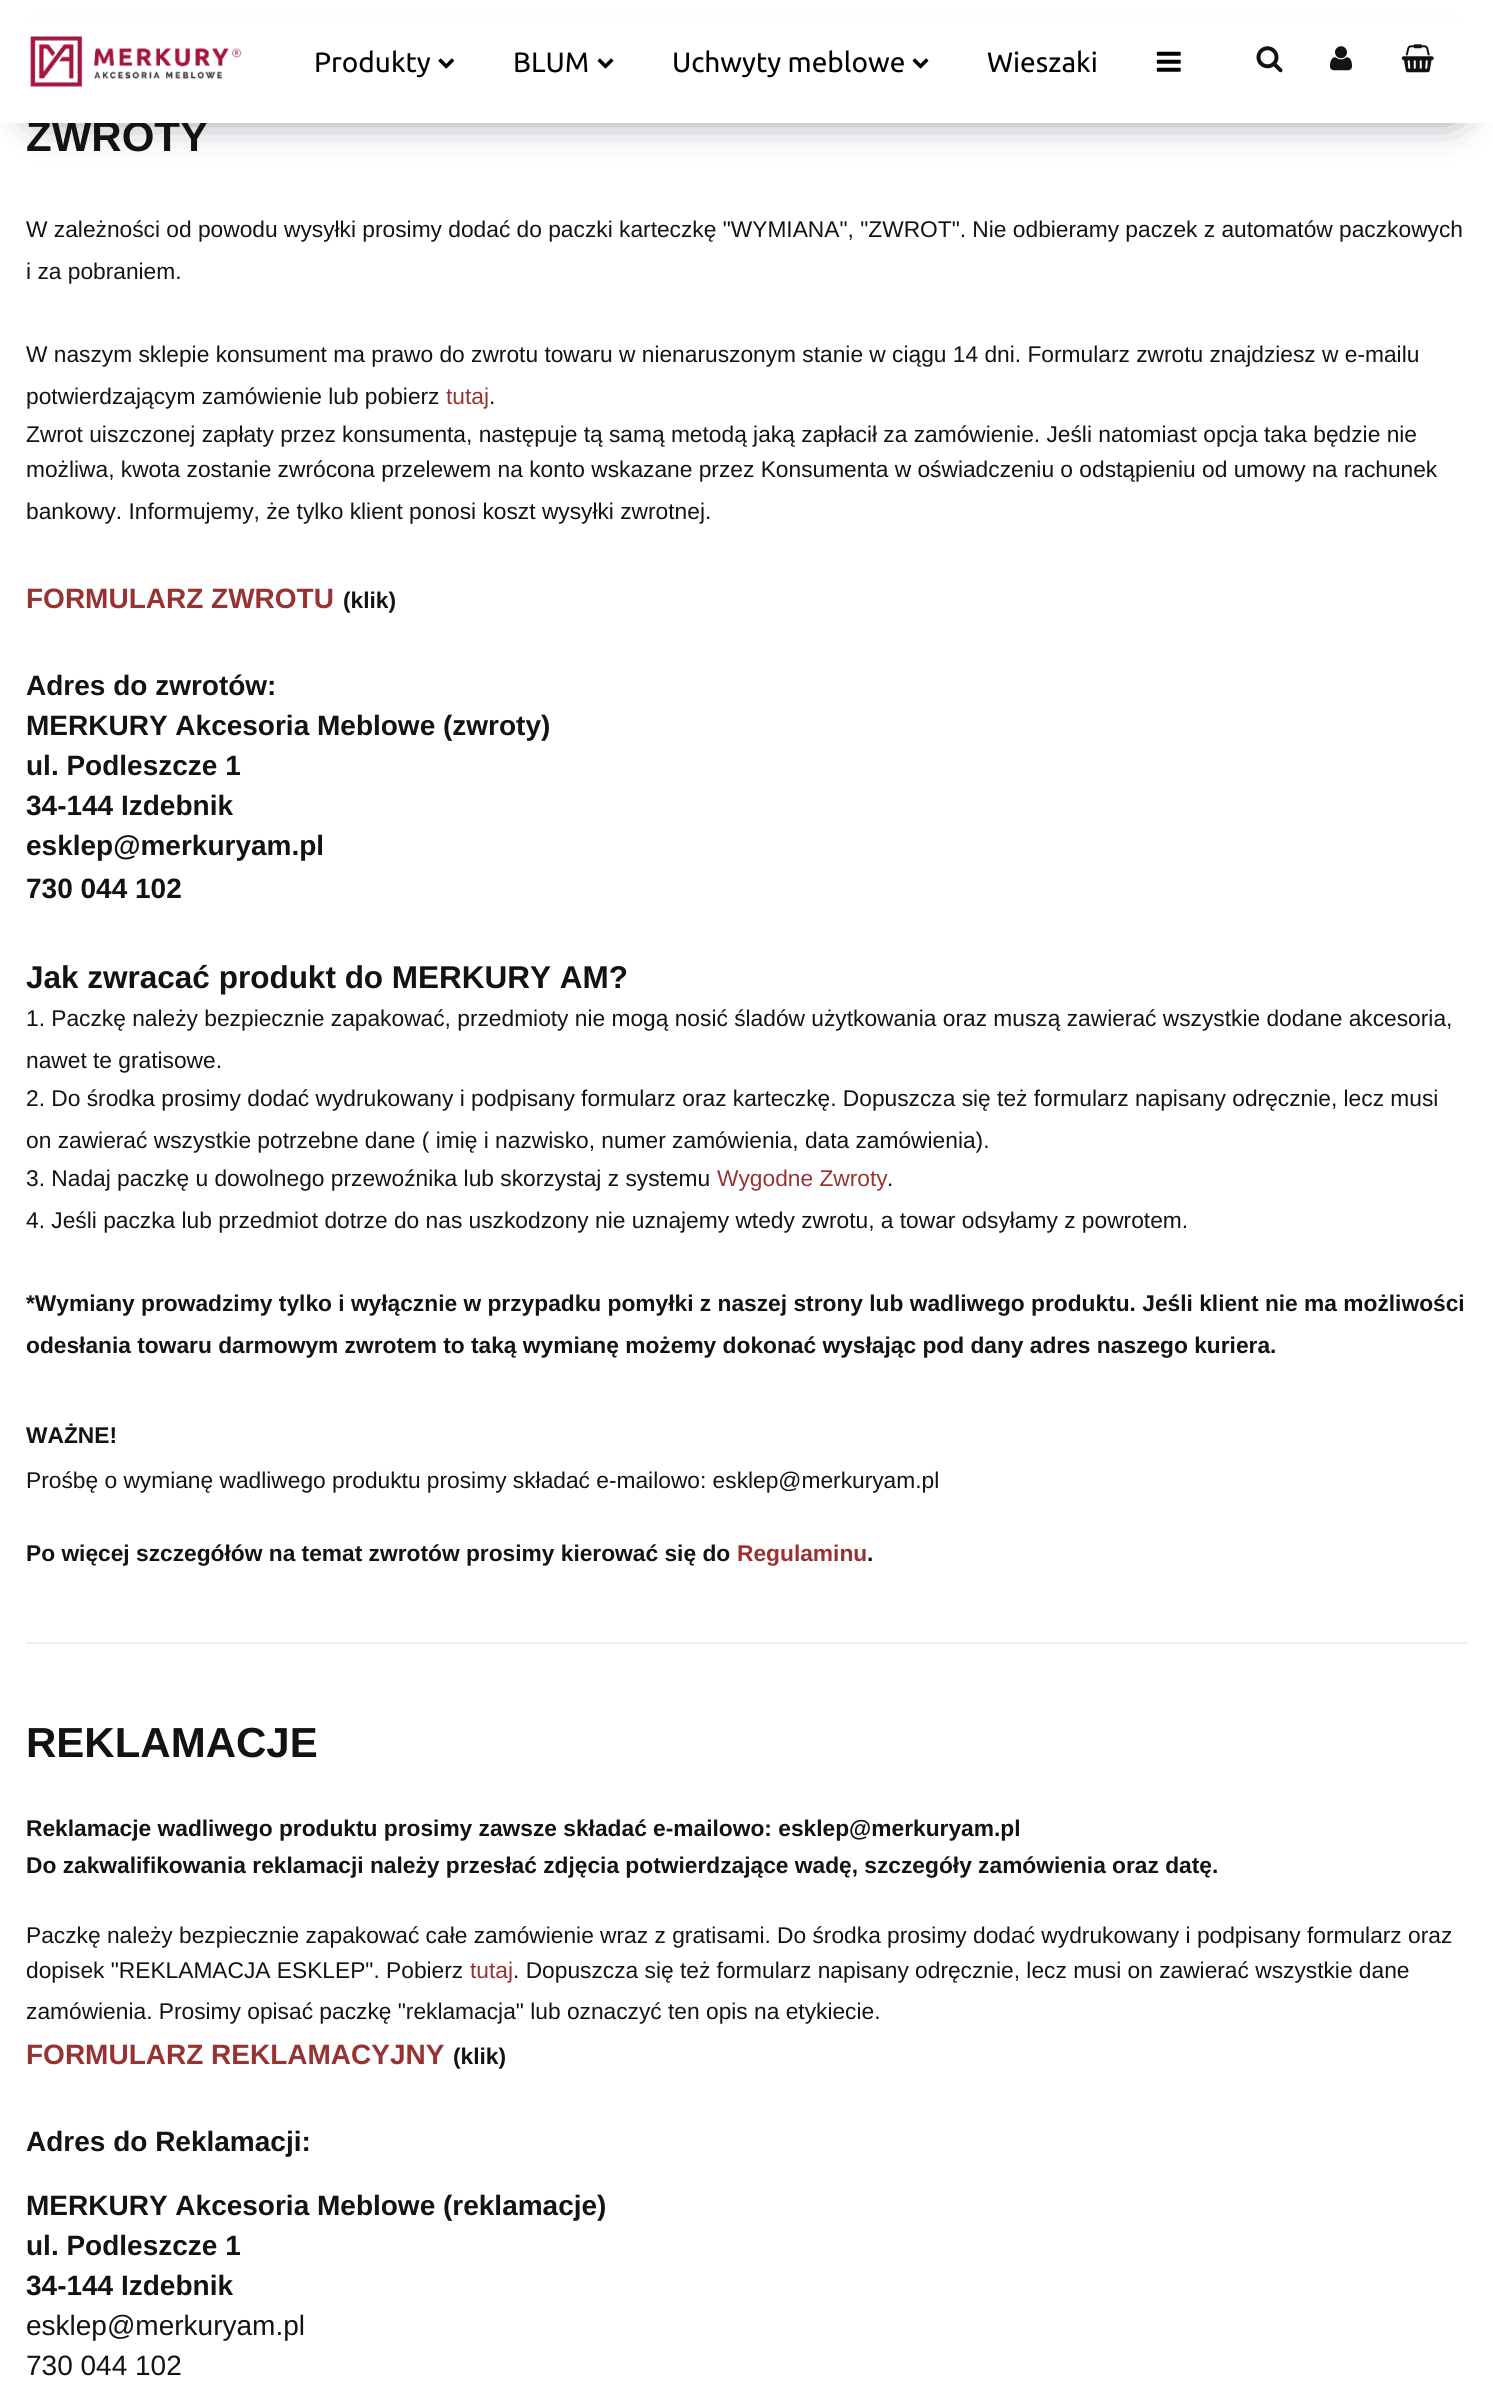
#include <cairo/cairo.h>
#include <math.h>
#include <stddef.h>

static cairo_t *cr;

static void use_color(int r, int g, int b) {
  cairo_set_source_rgb(cr, r / 255.0, g / 255.0, b / 255.0);
}

static void text(double x, double y, const char *s, const char *family, double size, int italic, int bold, int r, int g, int b) {
  cairo_select_font_face(cr, family, italic ? CAIRO_FONT_SLANT_ITALIC : CAIRO_FONT_SLANT_NORMAL,
    bold ? CAIRO_FONT_WEIGHT_BOLD : CAIRO_FONT_WEIGHT_NORMAL);
  cairo_set_font_size(cr, size);
  use_color(r, g, b);
  cairo_move_to(cr, x, y);
  cairo_show_text(cr, s);
}

static void box(double x, double y, double w, double h, int r, int g, int b) {
  use_color(r, g, b);
  cairo_rectangle(cr, x, y, w, h);
  cairo_fill(cr);
}

static void round_rect(double x, double y, double w, double h, double r) {
  cairo_new_sub_path(cr);
  cairo_arc(cr, x + w - r, y + h - r, r, 0, M_PI / 2);
  cairo_arc(cr, x + r, y + h - r, r, M_PI / 2, M_PI);
  cairo_arc(cr, x + r, y + r, r, M_PI, 1.5 * M_PI);
  cairo_arc(cr, x + w - r, y + r, r, 1.5 * M_PI, 2 * M_PI);
  cairo_close_path(cr);
}

static void shadow(double x, double y, double w, double h, double r, double blur, double alpha) {
  cairo_push_group_with_content(cr, CAIRO_CONTENT_ALPHA);
  cairo_set_operator(cr, CAIRO_OPERATOR_SOURCE);
  for (int i = 15; i >= -15 && fmin(w, h) + blur * i / 3 > 0; i -= 2) {
    double e = blur * i / 6;
    cairo_set_source_rgba(cr, 0, 0, 0, alpha * erfc((i - 1) / 8.5) / 2);
    round_rect(x - e, y - e, w + 2 * e, h + 2 * e, fmax(0, fmin(r + e + blur * .6, fmin(w, h) / 2 + e)));
    cairo_fill(cr);
  }
  cairo_pattern_t *soft = cairo_pop_group(cr);
  cairo_mask(cr, soft);
  cairo_pattern_destroy(soft);
}

static void picture(const char *path, double x, double y, double w, double h) {
  cairo_surface_t *image = cairo_image_surface_create_from_png(path);
  cairo_save(cr);
  cairo_set_source_surface(cr, image, x, y);
  cairo_rectangle(cr, x, y, w, h);
  cairo_fill(cr);
  cairo_restore(cr);
  cairo_surface_destroy(image);
}

static void draw(void) {
  use_color(255, 255, 255);
  cairo_paint(cr);
  use_color(66, 68, 90);
  shadow(39, 67, 1414, 42, 0, 22, 1);
  box(26, 1642, 1442, 2, 238, 238, 238);
  text(26, 151, "ZWROTY", "Liberation Sans", 42, 0, 1, 19, 19, 19);
  box(0, 19, 1493, 104, 255, 255, 255);
  picture("img_08.png", 1401, 44, 33, 29);
  picture("img_07.png", 1330, 46, 22, 25);
  picture("img_06.png", 1256, 46, 27, 27);
  picture("img_05.png", 1156, 51, 25, 21);
  text(987, 72, "Wieszaki", "Ubuntu", 28, 0, 0, 2, 2, 2);
  picture("img_04.png", 912, 58, 17, 11);
  picture("img_03.png", 597, 58, 17, 11);
  picture("img_02.png", 438, 58, 17, 11);
  text(672, 72, "Uchwyty meblowe", "Ubuntu", 28, 0, 0, 2, 2, 2);
  text(513, 72, "BLUM", "Ubuntu", 28, 0, 0, 2, 2, 2);
  text(314, 72, "Produkty", "Ubuntu", 28, 0, 0, 2, 2, 2);
  picture("img_01.png", 30, 36, 212, 51);
  text(26, 237, "W zależności od powodu wysyłki prosimy dodać do paczki karteczkę \"WYMIANA\", \"ZWROT\". Nie odbieramy paczek z automatów paczkowych", "Liberation Sans", 22.75, 0, 0, 19, 19, 19);
  text(26, 279, "i za pobraniem.", "Liberation Sans", 22.75, 0, 0, 19, 19, 19);
  text(26, 362, "W naszym sklepie konsument ma prawo do zwrotu towaru w nienaruszonym stanie w ciągu 14 dni. Formularz zwrotu znajdziesz w e-mailu", "Liberation Sans", 22.75, 0, 0, 19, 19, 19);
  text(26, 404, "potwierdzającym zamówienie lub pobierz", "Liberation Sans", 22.75, 0, 0, 19, 19, 19);
  text(446, 404, "tutaj", "Liberation Sans", 22.75, 0, 0, 153, 51, 51);
  text(489, 404, ".", "Liberation Sans", 22.75, 0, 0, 19, 19, 19);
  text(26, 442, "Zwrot uiszczonej zapłaty przez konsumenta, następuje tą samą metodą jaką zapłacił za zamówienie. Jeśli natomiast opcja taka będzie nie", "Liberation Sans", 22.75, 0, 0, 19, 19, 19);
  text(26, 477, "możliwa, kwota zostanie zwrócona przelewem na konto wskazane przez Konsumenta w oświadczeniu o odstąpieniu od umowy na rachunek", "Liberation Sans", 22.75, 0, 0, 19, 19, 19);
  text(26, 519, "bankowy. Informujemy, że tylko klient ponosi koszt wysyłki zwrotnej.", "Liberation Sans", 22.75, 0, 0, 19, 19, 19);
  text(26, 608, "FORMULARZ ZWROTU", "Liberation Sans", 28, 0, 1, 153, 51, 51);
  text(343, 608, "(klik)", "Liberation Sans", 22.75, 0, 1, 19, 19, 19);
  text(26, 695, "Adres do zwrotów:", "Liberation Sans", 28, 0, 1, 19, 19, 19);
  text(26, 735, "MERKURY Akcesoria Meblowe (zwroty)", "Liberation Sans", 28, 0, 1, 19, 19, 19);
  text(26, 775, "ul. Podleszcze 1", "Liberation Sans", 28, 0, 1, 19, 19, 19);
  text(26, 815, "34-144 Izdebnik", "Liberation Sans", 28, 0, 1, 19, 19, 19);
  text(26, 855, "esklep@merkuryam.pl", "Liberation Sans", 28, 0, 1, 19, 19, 19);
  text(26, 898, "730 044 102", "Liberation Sans", 28, 0, 1, 19, 19, 19);
  text(26, 988, "Jak zwracać produkt do MERKURY AM?", "Liberation Sans", 31.5, 0, 1, 19, 19, 19);
  text(26, 1026, "1. Paczkę należy bezpiecznie zapakować, przedmioty nie mogą nosić śladów użytkowania oraz muszą zawierać wszystkie dodane akcesoria,", "Liberation Sans", 22.75, 0, 0, 19, 19, 19);
  text(26, 1068, "nawet te gratisowe.", "Liberation Sans", 22.75, 0, 0, 19, 19, 19);
  text(26, 1106, "2. Do środka prosimy dodać wydrukowany i podpisany formularz oraz karteczkę. Dopuszcza się też formularz napisany odręcznie, lecz musi", "Liberation Sans", 22.75, 0, 0, 19, 19, 19);
  text(26, 1148, "on zawierać wszystkie potrzebne dane ( imię i nazwisko, numer zamówienia, data zamówienia).", "Liberation Sans", 22.75, 0, 0, 19, 19, 19);
  text(26, 1186, "3. Nadaj paczkę u dowolnego przewoźnika lub skorzystaj z systemu", "Liberation Sans", 22.75, 0, 0, 19, 19, 19);
  text(717, 1186, "Wygodne Zwroty", "Liberation Sans", 22.75, 0, 0, 153, 51, 51);
  text(887, 1186, ".", "Liberation Sans", 22.75, 0, 0, 19, 19, 19);
  text(26, 1228, "4. Jeśli paczka lub przedmiot dotrze do nas uszkodzony nie uznajemy wtedy zwrotu, a towar odsyłamy z powrotem.", "Liberation Sans", 22.75, 0, 0, 19, 19, 19);
  text(26, 1311, "*Wymiany prowadzimy tylko i wyłącznie w przypadku pomyłki z naszej strony lub wadliwego produktu. Jeśli klient nie ma możliwości", "Liberation Sans", 22.75, 0, 1, 19, 19, 19);
  text(26, 1353, "odesłania towaru darmowym zwrotem to taką wymianę możemy dokonać wysłając pod dany adres naszego kuriera.", "Liberation Sans", 22.75, 0, 1, 19, 19, 19);
  text(26, 1443, "WAŻNE!", "Liberation Sans", 22.75, 0, 1, 19, 19, 19);
  text(26, 1488, "Prośbę o wymianę wadliwego produktu prosimy składać e-mailowo: esklep@merkuryam.pl", "Liberation Sans", 22.75, 0, 0, 19, 19, 19);
  text(26, 1561, "Po więcej szczegółów na temat zwrotów prosimy kierować się do", "Liberation Sans", 22.75, 0, 1, 19, 19, 19);
  text(737, 1561, "Regulaminu", "Liberation Sans", 22.75, 0, 1, 153, 51, 51);
  text(867, 1561, ".", "Liberation Sans", 22.75, 0, 1, 19, 19, 19);
  text(26, 1757, "REKLAMACJE", "Liberation Sans", 42, 0, 1, 19, 19, 19);
  text(26, 1836, "Reklamacje wadliwego produktu prosimy zawsze składać e-mailowo: esklep@merkuryam.pl", "Liberation Sans", 22.75, 0, 1, 19, 19, 19);
  text(26, 1873, "Do zakwalifikowania reklamacji należy przesłać zdjęcia potwierdzające wadę, szczegóły zamówienia oraz datę.", "Liberation Sans", 22.75, 0, 1, 19, 19, 19);
  text(26, 1943, "Paczkę należy bezpiecznie zapakować całe zamówienie wraz z gratisami. Do środka prosimy dodać wydrukowany i podpisany formularz oraz", "Liberation Sans", 22.75, 0, 0, 19, 19, 19);
  text(26, 1978, "dopisek \"REKLAMACJA ESKLEP\". Pobierz", "Liberation Sans", 22.75, 0, 0, 19, 19, 19);
  text(470, 1978, "tutaj", "Liberation Sans", 22.75, 0, 0, 153, 51, 51);
  text(513, 1978, ". Dopuszcza się też formularz napisany odręcznie, lecz musi on zawierać wszystkie dane", "Liberation Sans", 22.75, 0, 0, 19, 19, 19);
  text(26, 2019, "zamówienia. Prosimy opisać paczkę \"reklamacja\" lub oznaczyć ten opis na etykiecie.", "Liberation Sans", 22.75, 0, 0, 19, 19, 19);
  text(26, 2064, "FORMULARZ REKLAMACYJNY", "Liberation Sans", 28, 0, 1, 153, 51, 51);
  text(453, 2064, "(klik)", "Liberation Sans", 22.75, 0, 1, 19, 19, 19);
  text(26, 2151, "Adres do Reklamacji:", "Liberation Sans", 28, 0, 1, 19, 19, 19);
  text(26, 2215, "MERKURY Akcesoria Meblowe (reklamacje)", "Liberation Sans", 28, 0, 1, 19, 19, 19);
  text(26, 2255, "ul. Podleszcze 1", "Liberation Sans", 28, 0, 1, 19, 19, 19);
  text(26, 2295, "34-144 Izdebnik", "Liberation Sans", 28, 0, 1, 19, 19, 19);
  text(26, 2335, "esklep@merkuryam.pl", "Liberation Sans", 28, 0, 0, 19, 19, 19);
  text(26, 2375, "730 044 102", "Liberation Sans", 28, 0, 0, 19, 19, 19);
}

int main(void) {
  cairo_surface_t *surface = cairo_image_surface_create(CAIRO_FORMAT_RGB24, 1493, 2382);
  cr = cairo_create(surface);
  cairo_font_options_t *options = cairo_font_options_create();
  cairo_font_options_set_hint_metrics(options, CAIRO_HINT_METRICS_OFF);
  cairo_font_options_set_hint_style(options, CAIRO_HINT_STYLE_NONE);
  cairo_set_font_options(cr, options);
  cairo_set_miter_limit(cr, 4);
  draw();
  cairo_surface_write_to_png(surface, "out.png");
  cairo_font_options_destroy(options);
  cairo_destroy(cr);
  cairo_surface_destroy(surface);
  return 0;
}
